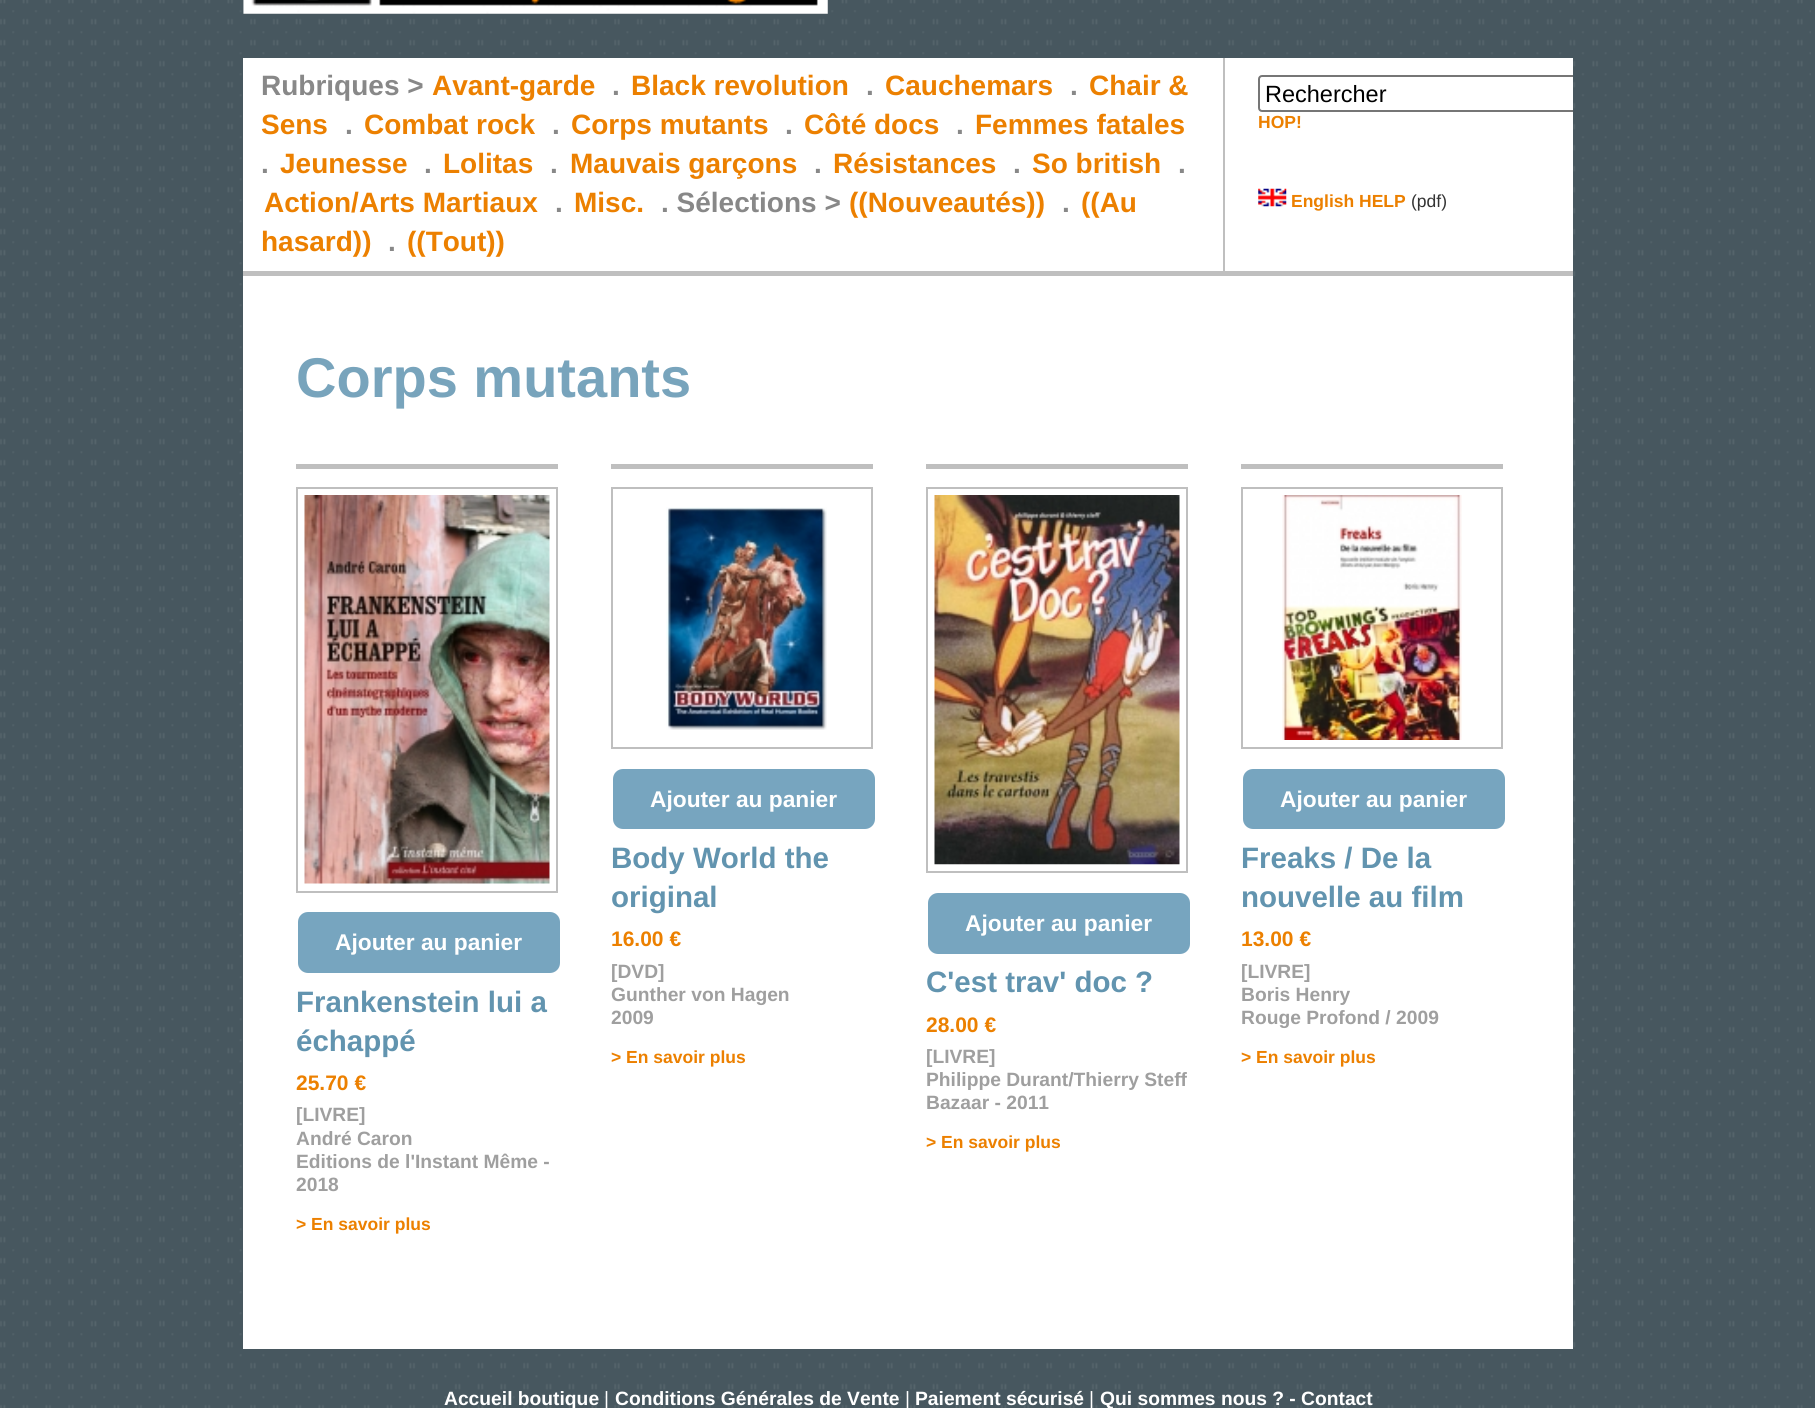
#include <cairo/cairo.h>
#include <math.h>
#include <stddef.h>

static cairo_t *cr;

static void use_color(int r, int g, int b) {
  cairo_set_source_rgb(cr, r / 255.0, g / 255.0, b / 255.0);
}

static void text(double x, double y, const char *s, const char *family, double size, int italic, int bold, int r, int g, int b) {
  cairo_select_font_face(cr, family, italic ? CAIRO_FONT_SLANT_ITALIC : CAIRO_FONT_SLANT_NORMAL,
    bold ? CAIRO_FONT_WEIGHT_BOLD : CAIRO_FONT_WEIGHT_NORMAL);
  cairo_set_font_size(cr, size);
  use_color(r, g, b);
  cairo_move_to(cr, x, y);
  cairo_show_text(cr, s);
}

static void box(double x, double y, double w, double h, int r, int g, int b) {
  use_color(r, g, b);
  cairo_rectangle(cr, x, y, w, h);
  cairo_fill(cr);
}

static void round_rect(double x, double y, double w, double h, double r) {
  cairo_new_sub_path(cr);
  cairo_arc(cr, x + w - r, y + h - r, r, 0, M_PI / 2);
  cairo_arc(cr, x + r, y + h - r, r, M_PI / 2, M_PI);
  cairo_arc(cr, x + r, y + r, r, M_PI, 1.5 * M_PI);
  cairo_arc(cr, x + w - r, y + r, r, 1.5 * M_PI, 2 * M_PI);
  cairo_close_path(cr);
}

static void picture(const char *path, double x, double y, double w, double h) {
  cairo_surface_t *image = cairo_image_surface_create_from_png(path);
  cairo_save(cr);
  cairo_set_source_surface(cr, image, x, y);
  cairo_rectangle(cr, x, y, w, h);
  cairo_fill(cr);
  cairo_restore(cr);
  cairo_surface_destroy(image);
}

static void draw(void) {
  use_color(71, 87, 95);
  cairo_paint(cr);
  picture("img_01.png", 0, 0, 1811, 1408);
  picture("img_02.png", 243, 0, 585, 14);
  box(243, 58, 1330, 1291, 255, 255, 255);
  box(243, 271, 1330, 5, 191, 191, 191);
  box(1223, 58, 2, 213, 191, 191, 191);
  cairo_save(cr);
  cairo_rectangle(cr, 243, 0, 1330, 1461);
  cairo_clip(cr);
  round_rect(1259, 76, 322, 35, 3);
  use_color(118, 118, 118);
  cairo_stroke(cr);
  cairo_restore(cr);
  picture("img_03.png", 1258, 188, 29, 19);
  box(296, 464, 262, 5, 191, 191, 191);
  cairo_rectangle(cr, 297, 488, 260, 404);
  cairo_stroke(cr);
  picture("img_04.png", 304, 495, 246, 389);
  use_color(119, 165, 191);
  round_rect(297, 911, 264, 63, 11);
  cairo_fill_preserve(cr);
  use_color(255, 255, 255);
  cairo_stroke(cr);
  box(611, 464, 262, 5, 191, 191, 191);
  cairo_rectangle(cr, 612, 488, 260, 260);
  cairo_stroke(cr);
  picture("img_05.png", 666, 507, 161, 223);
  use_color(119, 165, 191);
  round_rect(612, 768, 264, 62, 11);
  cairo_fill_preserve(cr);
  use_color(255, 255, 255);
  cairo_stroke(cr);
  box(926, 464, 262, 5, 191, 191, 191);
  cairo_rectangle(cr, 927, 488, 260, 384);
  cairo_stroke(cr);
  picture("img_06.png", 934, 495, 246, 370);
  use_color(119, 165, 191);
  round_rect(927, 892, 264, 63, 11);
  cairo_fill_preserve(cr);
  use_color(255, 255, 255);
  cairo_stroke(cr);
  box(1241, 464, 262, 5, 191, 191, 191);
  cairo_rectangle(cr, 1242, 488, 260, 260);
  cairo_stroke(cr);
  picture("img_07.png", 1282, 495, 180, 245);
  use_color(119, 165, 191);
  round_rect(1242, 768, 264, 62, 11);
  cairo_fill_preserve(cr);
  use_color(255, 255, 255);
  cairo_stroke(cr);
  text(261, 95, "Rubriques >", "Liberation Sans", 28, 0, 1, 136, 136, 136);
  text(432, 95, "Avant-garde", "Liberation Sans", 28, 0, 1, 236, 128, 0);
  text(612, 95, ".", "Liberation Sans", 28, 0, 1, 136, 136, 136);
  text(631, 95, "Black revolution", "Liberation Sans", 28, 0, 1, 236, 128, 0);
  text(866, 95, ".", "Liberation Sans", 28, 0, 1, 136, 136, 136);
  text(885, 95, "Cauchemars", "Liberation Sans", 28, 0, 1, 236, 128, 0);
  text(1070, 95, ".", "Liberation Sans", 28, 0, 1, 136, 136, 136);
  text(1089, 95, "Chair &", "Liberation Sans", 28, 0, 1, 236, 128, 0);
  text(261, 134, "Sens", "Liberation Sans", 28, 0, 1, 236, 128, 0);
  text(345, 134, ".", "Liberation Sans", 28, 0, 1, 136, 136, 136);
  text(364, 134, "Combat rock", "Liberation Sans", 28, 0, 1, 236, 128, 0);
  text(552, 134, ".", "Liberation Sans", 28, 0, 1, 136, 136, 136);
  text(571, 134, "Corps mutants", "Liberation Sans", 28, 0, 1, 236, 128, 0);
  text(785, 134, ".", "Liberation Sans", 28, 0, 1, 136, 136, 136);
  text(804, 134, "Côté docs", "Liberation Sans", 28, 0, 1, 236, 128, 0);
  text(956, 134, ".", "Liberation Sans", 28, 0, 1, 136, 136, 136);
  text(975, 134, "Femmes fatales", "Liberation Sans", 28, 0, 1, 236, 128, 0);
  text(261, 173, ".", "Liberation Sans", 28, 0, 1, 136, 136, 136);
  text(280, 173, "Jeunesse", "Liberation Sans", 28, 0, 1, 236, 128, 0);
  text(424, 173, ".", "Liberation Sans", 28, 0, 1, 136, 136, 136);
  text(443, 173, "Lolitas", "Liberation Sans", 28, 0, 1, 236, 128, 0);
  text(550, 173, ".", "Liberation Sans", 28, 0, 1, 136, 136, 136);
  text(570, 173, "Mauvais garçons", "Liberation Sans", 28, 0, 1, 236, 128, 0);
  text(814, 173, ".", "Liberation Sans", 28, 0, 1, 136, 136, 136);
  text(833, 173, "Résistances", "Liberation Sans", 28, 0, 1, 236, 128, 0);
  text(1013, 173, ".", "Liberation Sans", 28, 0, 1, 136, 136, 136);
  text(1032, 173, "So british", "Liberation Sans", 28, 0, 1, 236, 128, 0);
  text(1178, 173, ".", "Liberation Sans", 28, 0, 1, 136, 136, 136);
  text(264, 212, "Action/Arts Martiaux", "Liberation Sans", 28, 0, 1, 236, 128, 0);
  text(555, 212, ".", "Liberation Sans", 28, 0, 1, 136, 136, 136);
  text(574, 212, "Misc.", "Liberation Sans", 28, 0, 1, 236, 128, 0);
  text(661, 212, ". Sélections >", "Liberation Sans", 28, 0, 1, 136, 136, 136);
  text(849, 212, "((Nouveautés))", "Liberation Sans", 28, 0, 1, 236, 128, 0);
  text(1062, 212, ".", "Liberation Sans", 28, 0, 1, 136, 136, 136);
  text(1081, 212, "((Au", "Liberation Sans", 28, 0, 1, 236, 128, 0);
  text(261, 251, "hasard))", "Liberation Sans", 28, 0, 1, 236, 128, 0);
  text(388, 251, ".", "Liberation Sans", 28, 0, 1, 136, 136, 136);
  text(407, 251, "((Tout))", "Liberation Sans", 28, 0, 1, 236, 128, 0);
  text(1265, 102, "Rechercher", "Liberation Sans", 23.5, 0, 0, 0, 0, 0);
  text(1258, 128, "HOP!", "Liberation Sans", 17.5, 0, 1, 236, 128, 0);
  text(1291, 207, "English HELP", "Liberation Sans", 17.5, 0, 1, 236, 128, 0);
  text(1411, 207, "(pdf)", "Liberation Sans", 17.5, 0, 0, 51, 51, 51);
  text(296, 397, "Corps mutants", "Liberation Sans", 56, 0, 1, 120, 164, 188);
  text(335, 950, "Ajouter au panier", "Liberation Sans", 22.75, 0, 1, 255, 255, 255);
  text(296, 1012, "Frankenstein lui a", "Liberation Sans", 29.5, 0, 1, 98, 148, 175);
  text(296, 1051, "échappé", "Liberation Sans", 29.5, 0, 1, 98, 148, 175);
  text(296, 1090, "25.70 €", "Liberation Sans", 21, 0, 1, 236, 128, 0);
  text(296, 1121, "[LIVRE]", "Liberation Sans", 19.25, 0, 1, 159, 159, 159);
  text(296, 1145, "André Caron", "Liberation Sans", 19.25, 0, 1, 159, 159, 159);
  text(296, 1168, "Editions de l'Instant Même -", "Liberation Sans", 19.25, 0, 1, 159, 159, 159);
  text(296, 1191, "2018", "Liberation Sans", 19.25, 0, 1, 159, 159, 159);
  text(296, 1230, "> En savoir plus", "Liberation Sans", 17.5, 0, 1, 236, 128, 0);
  text(650, 807, "Ajouter au panier", "Liberation Sans", 22.75, 0, 1, 255, 255, 255);
  text(611, 868, "Body World the", "Liberation Sans", 29.5, 0, 1, 98, 148, 175);
  text(611, 907, "original", "Liberation Sans", 29.5, 0, 1, 98, 148, 175);
  text(611, 946, "16.00 €", "Liberation Sans", 21, 0, 1, 236, 128, 0);
  text(611, 978, "[DVD]", "Liberation Sans", 19.25, 0, 1, 159, 159, 159);
  text(611, 1001, "Gunther von Hagen", "Liberation Sans", 19.25, 0, 1, 159, 159, 159);
  text(611, 1024, "2009", "Liberation Sans", 19.25, 0, 1, 159, 159, 159);
  text(611, 1063, "> En savoir plus", "Liberation Sans", 17.5, 0, 1, 236, 128, 0);
  text(965, 931, "Ajouter au panier", "Liberation Sans", 22.75, 0, 1, 255, 255, 255);
  text(926, 992, "C'est trav' doc ?", "Liberation Sans", 29.5, 0, 1, 98, 148, 175);
  text(926, 1032, "28.00 €", "Liberation Sans", 21, 0, 1, 236, 128, 0);
  text(926, 1063, "[LIVRE]", "Liberation Sans", 19.25, 0, 1, 159, 159, 159);
  text(926, 1086, "Philippe Durant/Thierry Steff", "Liberation Sans", 19.25, 0, 1, 159, 159, 159);
  text(926, 1109, "Bazaar - 2011", "Liberation Sans", 19.25, 0, 1, 159, 159, 159);
  text(926, 1148, "> En savoir plus", "Liberation Sans", 17.5, 0, 1, 236, 128, 0);
  text(1280, 807, "Ajouter au panier", "Liberation Sans", 22.75, 0, 1, 255, 255, 255);
  text(1241, 868, "Freaks / De la", "Liberation Sans", 29.5, 0, 1, 98, 148, 175);
  text(1241, 907, "nouvelle au film", "Liberation Sans", 29.5, 0, 1, 98, 148, 175);
  text(1241, 946, "13.00 €", "Liberation Sans", 21, 0, 1, 236, 128, 0);
  text(1241, 978, "[LIVRE]", "Liberation Sans", 19.25, 0, 1, 159, 159, 159);
  text(1241, 1001, "Boris Henry", "Liberation Sans", 19.25, 0, 1, 159, 159, 159);
  text(1241, 1024, "Rouge Profond / 2009", "Liberation Sans", 19.25, 0, 1, 159, 159, 159);
  text(1241, 1063, "> En savoir plus", "Liberation Sans", 17.5, 0, 1, 236, 128, 0);
  text(444, 1405, "Accueil boutique", "Liberation Sans", 19.25, 0, 1, 255, 255, 255);
  text(604, 1405, "|", "Liberation Sans", 19.25, 0, 0, 255, 255, 255);
  text(615, 1405, "Conditions Générales de Vente", "Liberation Sans", 19.25, 0, 1, 255, 255, 255);
  text(905, 1405, "|", "Liberation Sans", 19.25, 0, 0, 255, 255, 255);
  text(915, 1405, "Paiement sécurisé", "Liberation Sans", 19.25, 0, 1, 255, 255, 255);
  text(1089, 1405, "|", "Liberation Sans", 19.25, 0, 0, 255, 255, 255);
  text(1100, 1405, "Qui sommes nous ? - Contact", "Liberation Sans", 19.25, 0, 1, 255, 255, 255);
}

int main(void) {
  cairo_surface_t *surface = cairo_image_surface_create(CAIRO_FORMAT_RGB24, 1815, 1408);
  cr = cairo_create(surface);
  cairo_font_options_t *options = cairo_font_options_create();
  cairo_font_options_set_hint_metrics(options, CAIRO_HINT_METRICS_OFF);
  cairo_font_options_set_hint_style(options, CAIRO_HINT_STYLE_NONE);
  cairo_set_font_options(cr, options);
  cairo_set_miter_limit(cr, 4);
  draw();
  cairo_surface_write_to_png(surface, "out.png");
  cairo_font_options_destroy(options);
  cairo_destroy(cr);
  cairo_surface_destroy(surface);
  return 0;
}
